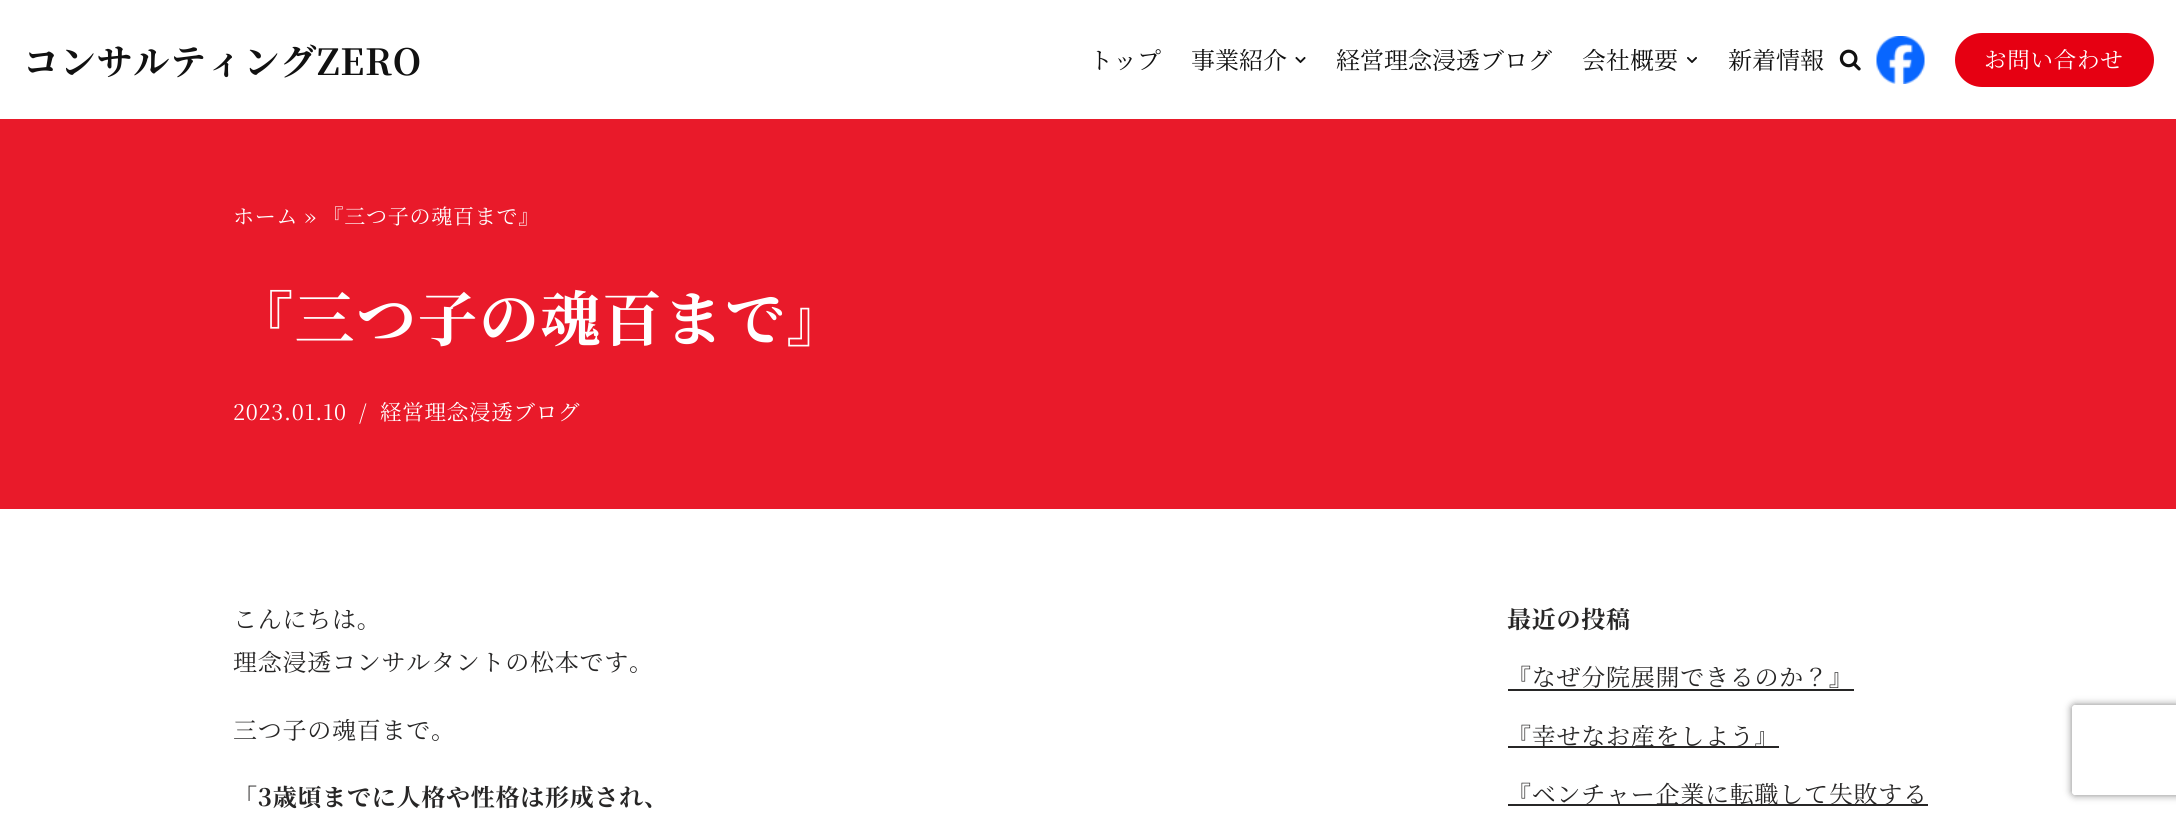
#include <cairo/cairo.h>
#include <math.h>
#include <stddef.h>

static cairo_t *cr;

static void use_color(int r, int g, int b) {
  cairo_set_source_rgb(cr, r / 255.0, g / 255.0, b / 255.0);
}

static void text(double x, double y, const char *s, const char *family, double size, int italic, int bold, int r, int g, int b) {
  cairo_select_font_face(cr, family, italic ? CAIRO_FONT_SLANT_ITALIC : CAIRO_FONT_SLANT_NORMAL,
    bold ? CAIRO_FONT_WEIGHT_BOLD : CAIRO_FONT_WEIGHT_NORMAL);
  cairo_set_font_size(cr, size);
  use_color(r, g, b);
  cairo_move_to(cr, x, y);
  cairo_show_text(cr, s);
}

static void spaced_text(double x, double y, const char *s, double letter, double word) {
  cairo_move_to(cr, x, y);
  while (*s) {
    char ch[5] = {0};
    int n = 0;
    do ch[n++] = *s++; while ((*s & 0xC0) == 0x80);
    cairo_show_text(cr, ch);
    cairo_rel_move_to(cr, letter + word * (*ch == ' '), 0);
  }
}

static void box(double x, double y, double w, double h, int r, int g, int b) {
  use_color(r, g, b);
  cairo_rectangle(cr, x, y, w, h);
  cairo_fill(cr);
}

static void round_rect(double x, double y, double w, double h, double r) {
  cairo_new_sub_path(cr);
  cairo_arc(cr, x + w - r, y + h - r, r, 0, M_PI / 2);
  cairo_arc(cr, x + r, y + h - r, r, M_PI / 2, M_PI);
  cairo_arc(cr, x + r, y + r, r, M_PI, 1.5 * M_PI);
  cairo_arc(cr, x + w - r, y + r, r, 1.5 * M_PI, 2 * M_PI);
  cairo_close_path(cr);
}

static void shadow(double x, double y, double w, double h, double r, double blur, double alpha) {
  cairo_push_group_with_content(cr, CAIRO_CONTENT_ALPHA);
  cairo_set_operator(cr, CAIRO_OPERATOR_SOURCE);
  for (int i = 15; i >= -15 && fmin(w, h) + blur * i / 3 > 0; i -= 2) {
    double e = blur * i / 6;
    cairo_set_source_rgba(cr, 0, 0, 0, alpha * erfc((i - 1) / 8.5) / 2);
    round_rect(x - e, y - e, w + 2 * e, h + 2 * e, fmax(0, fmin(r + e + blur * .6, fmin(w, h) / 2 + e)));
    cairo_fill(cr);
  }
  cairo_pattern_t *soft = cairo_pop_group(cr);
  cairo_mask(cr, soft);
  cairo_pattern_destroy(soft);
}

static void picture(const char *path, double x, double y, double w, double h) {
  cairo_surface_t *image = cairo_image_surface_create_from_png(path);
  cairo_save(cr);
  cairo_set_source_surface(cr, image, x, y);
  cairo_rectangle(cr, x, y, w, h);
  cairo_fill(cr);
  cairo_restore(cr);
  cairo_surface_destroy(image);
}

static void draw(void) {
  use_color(255, 255, 255);
  cairo_paint(cr);
  picture("img_01.png", 1295, 56, 11, 8);
  picture("img_02.png", 1687, 57, 10, 6);
  picture("img_03.png", 1839, 49, 22, 22);
  picture("img_04.png", 1876, 36, 49, 48);
  use_color(230, 0, 18);
  round_rect(1955, 33, 199, 54, 27);
  cairo_fill(cr);
  box(0, 119, 2176, 390, 233, 26, 42);
  box(1508, 689, 346, 2, 39, 38, 38);
  box(1508, 746, 271, 2, 39, 38, 38);
  box(1508, 804, 420, 2, 39, 38, 38);
  cairo_save(cr);
  cairo_set_fill_rule(cr, CAIRO_FILL_RULE_EVEN_ODD);
  cairo_new_path(cr);
  cairo_move_to(cr, 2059, 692);
  cairo_line_to(cr, 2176, 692);
  cairo_line_to(cr, 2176, 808);
  cairo_line_to(cr, 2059, 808);
  cairo_close_path(cr);
  cairo_move_to(cr, 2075, 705);
  cairo_line_to(cr, 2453, 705);
  cairo_curve_to(cr, 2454.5, 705, 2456, 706.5, 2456, 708);
  cairo_line_to(cr, 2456, 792);
  cairo_curve_to(cr, 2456, 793.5, 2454.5, 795, 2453, 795);
  cairo_line_to(cr, 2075, 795);
  cairo_curve_to(cr, 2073.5, 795, 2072, 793.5, 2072, 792);
  cairo_line_to(cr, 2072, 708);
  cairo_curve_to(cr, 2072, 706.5, 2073.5, 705, 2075, 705);
  cairo_close_path(cr);
  cairo_clip(cr);
  use_color(128, 128, 128);
  shadow(2072, 705, 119, 90, 3, 4, 1);
  cairo_restore(cr);
  cairo_select_font_face(cr, "Noto Serif JP", CAIRO_FONT_SLANT_NORMAL, CAIRO_FONT_WEIGHT_BOLD);
  cairo_set_font_size(cr, 36);
  use_color(17, 17, 17);
  spaced_text(23, 75, "コンサルティングZERO", 0.75, 0);
  text(1089, 69, "トップ", "Noto Serif JP", 24, 0, 0, 17, 17, 17);
  text(1191, 69, "事業紹介", "Noto Serif JP", 24, 0, 0, 17, 17, 17);
  text(1336, 69, "経営理念浸透ブログ", "Noto Serif JP", 24, 0, 0, 17, 17, 17);
  text(1582, 69, "会社概要", "Noto Serif JP", 24, 0, 0, 17, 17, 17);
  text(1728, 69, "新着情報", "Noto Serif JP", 24, 0, 0, 17, 17, 17);
  cairo_set_font_size(cr, 22.5);
  use_color(255, 255, 255);
  spaced_text(1984, 68, "お問い合わせ", 0.75, 0);
  cairo_set_font_size(cr, 21);
  spaced_text(233, 224, "ホーム » 『三つ子の魂百まで』", 0.75, 0);
  cairo_select_font_face(cr, "Noto Serif JP", CAIRO_FONT_SLANT_NORMAL, CAIRO_FONT_WEIGHT_BOLD);
  cairo_set_font_size(cr, 60);
  spaced_text(233, 341, "『三つ子の魂百まで』", 1.5, 0);
  cairo_select_font_face(cr, "Noto Serif JP", CAIRO_FONT_SLANT_NORMAL, CAIRO_FONT_WEIGHT_NORMAL);
  cairo_set_font_size(cr, 21.5);
  spaced_text(233, 420, "2023.01.10", 0.75, 0);
  spaced_text(359, 420, "/", 0.75, 0);
  spaced_text(380, 420, "経営理念浸透ブログ", 0.75, 0);
  cairo_set_font_size(cr, 24);
  use_color(39, 38, 38);
  spaced_text(233, 628, "こんにちは。", 0.75, 0);
  spaced_text(233, 671, "理念浸透コンサルタントの松本です。", 0.75, 0);
  spaced_text(233, 739, "三つ子の魂百まで。", 0.75, 0);
  cairo_select_font_face(cr, "Noto Serif JP", CAIRO_FONT_SLANT_NORMAL, CAIRO_FONT_WEIGHT_BOLD);
  spaced_text(233, 806, "「3歳頃までに人格や性格は形成され、", 0.75, 0);
  spaced_text(1507, 628, "最近の投稿", 0.75, 0);
  cairo_select_font_face(cr, "Noto Serif JP", CAIRO_FONT_SLANT_NORMAL, CAIRO_FONT_WEIGHT_NORMAL);
  spaced_text(1507, 686, "『なぜ分院展開できるのか？』", 0.75, 0);
  spaced_text(1507, 745, "『幸せなお産をしよう』", 0.75, 0);
  spaced_text(1507, 803, "『ベンチャー企業に転職して失敗する", 0.75, 0);
}

int main(void) {
  cairo_surface_t *surface = cairo_image_surface_create(CAIRO_FORMAT_RGB24, 2176, 816);
  cr = cairo_create(surface);
  cairo_font_options_t *options = cairo_font_options_create();
  cairo_font_options_set_hint_metrics(options, CAIRO_HINT_METRICS_OFF);
  cairo_font_options_set_hint_style(options, CAIRO_HINT_STYLE_NONE);
  cairo_set_font_options(cr, options);
  cairo_set_miter_limit(cr, 4);
  draw();
  cairo_surface_write_to_png(surface, "out.png");
  cairo_font_options_destroy(options);
  cairo_destroy(cr);
  cairo_surface_destroy(surface);
  return 0;
}
